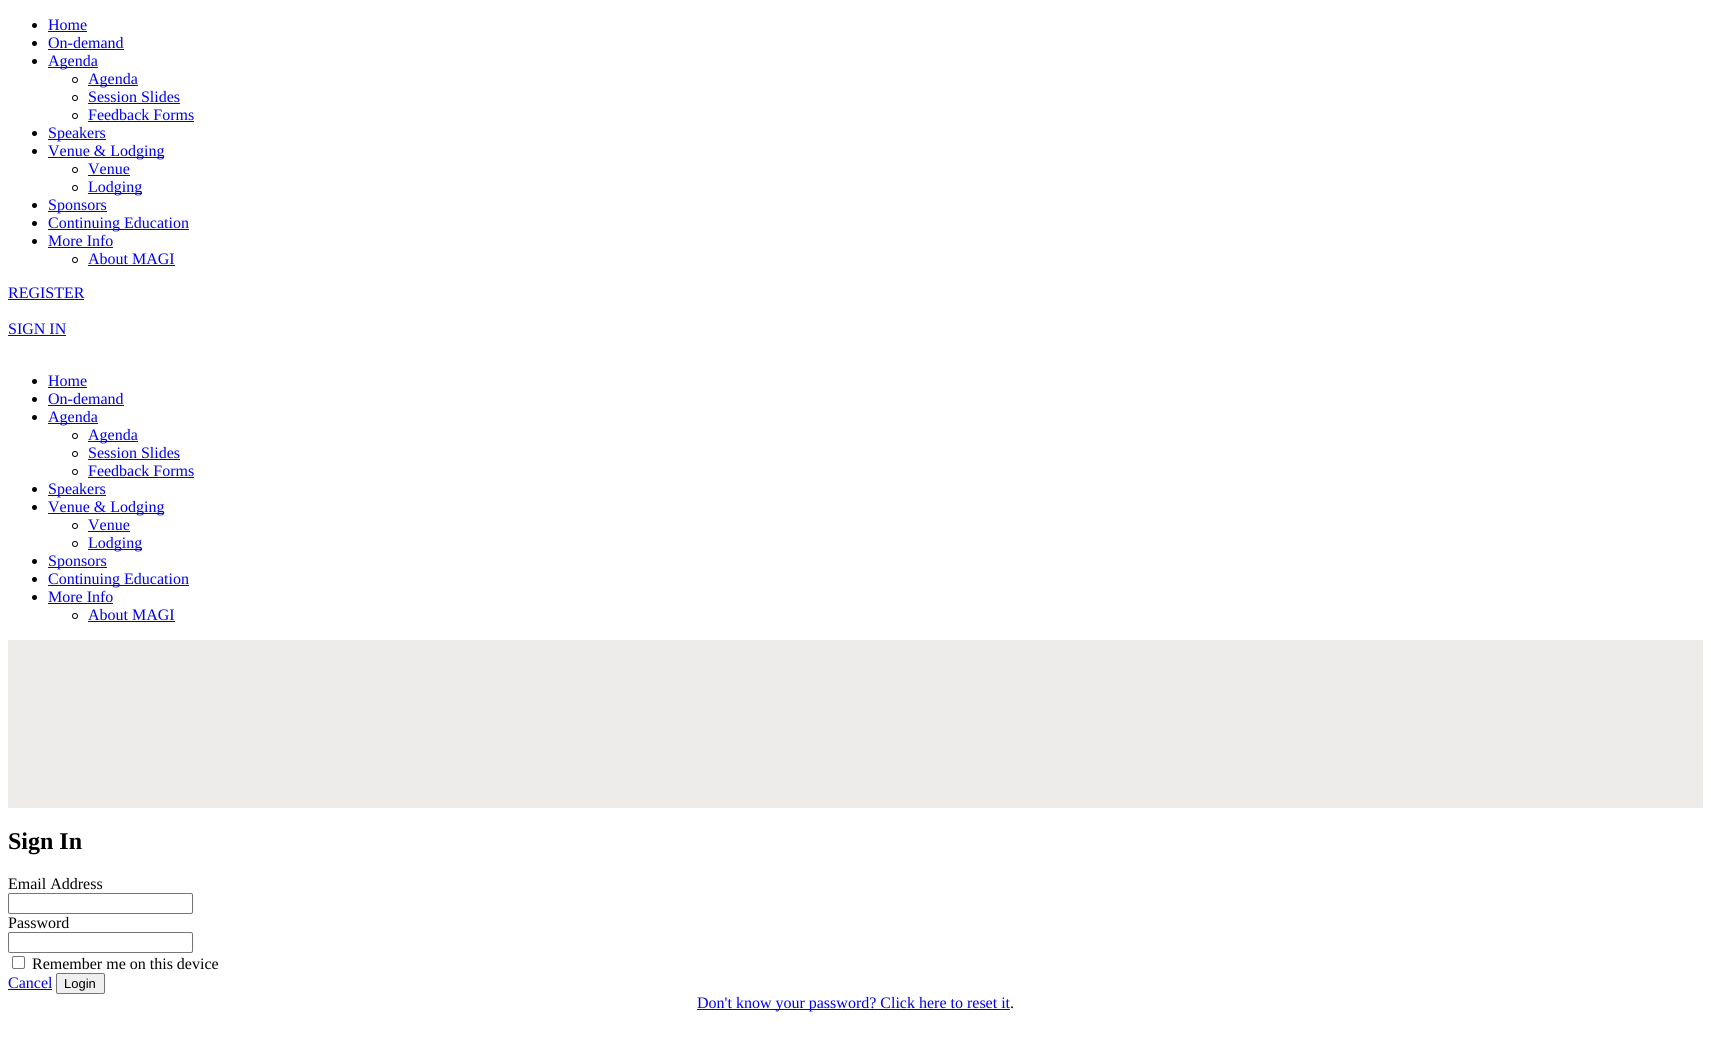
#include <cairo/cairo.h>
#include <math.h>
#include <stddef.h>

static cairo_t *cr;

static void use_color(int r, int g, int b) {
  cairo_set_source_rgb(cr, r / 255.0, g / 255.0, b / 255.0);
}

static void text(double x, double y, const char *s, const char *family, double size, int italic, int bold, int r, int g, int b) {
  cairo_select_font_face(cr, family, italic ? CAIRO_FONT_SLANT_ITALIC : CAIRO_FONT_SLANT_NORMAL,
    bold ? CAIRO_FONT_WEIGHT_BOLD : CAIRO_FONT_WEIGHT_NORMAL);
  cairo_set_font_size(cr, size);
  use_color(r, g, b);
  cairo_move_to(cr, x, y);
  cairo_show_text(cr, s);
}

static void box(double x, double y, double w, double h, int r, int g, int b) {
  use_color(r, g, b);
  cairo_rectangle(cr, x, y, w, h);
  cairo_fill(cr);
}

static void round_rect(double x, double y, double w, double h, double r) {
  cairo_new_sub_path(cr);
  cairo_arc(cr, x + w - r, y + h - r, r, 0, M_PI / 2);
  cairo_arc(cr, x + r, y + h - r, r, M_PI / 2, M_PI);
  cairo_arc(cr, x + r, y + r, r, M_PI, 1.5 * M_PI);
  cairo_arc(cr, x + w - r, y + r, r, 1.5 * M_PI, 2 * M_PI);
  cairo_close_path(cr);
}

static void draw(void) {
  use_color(255, 255, 255);
  cairo_paint(cr);
  use_color(0, 0, 0);
  cairo_arc(cr, 34.5, 25.5, 2.5, 0, 2 * M_PI);
  cairo_fill(cr);
  box(48, 31, 39, 1, 0, 0, 238);
  use_color(0, 0, 0);
  cairo_arc(cr, 34.5, 43.5, 2.5, 0, 2 * M_PI);
  cairo_fill(cr);
  box(48, 49, 76, 1, 0, 0, 238);
  use_color(0, 0, 0);
  cairo_arc(cr, 34.5, 61.5, 2.5, 0, 2 * M_PI);
  cairo_fill(cr);
  box(48, 67, 50, 1, 0, 0, 238);
  cairo_arc(cr, 75, 80, 2.5, 0, 2 * M_PI);
  use_color(0, 0, 0);
  cairo_set_line_width(cr, 1);
  cairo_stroke(cr);
  box(88, 85, 50, 1, 0, 0, 238);
  cairo_arc(cr, 75, 98, 2.5, 0, 2 * M_PI);
  use_color(0, 0, 0);
  cairo_stroke(cr);
  box(88, 103, 92, 1, 0, 0, 238);
  cairo_arc(cr, 75, 116, 2.5, 0, 2 * M_PI);
  use_color(0, 0, 0);
  cairo_stroke(cr);
  box(88, 121, 106, 1, 0, 0, 238);
  use_color(0, 0, 0);
  cairo_arc(cr, 34.5, 133.5, 2.5, 0, 2 * M_PI);
  cairo_fill(cr);
  box(48, 139, 58, 1, 0, 0, 238);
  use_color(0, 0, 0);
  cairo_arc(cr, 34.5, 151.5, 2.5, 0, 2 * M_PI);
  cairo_fill(cr);
  box(48, 157, 116, 1, 0, 0, 238);
  cairo_arc(cr, 75, 170, 2.5, 0, 2 * M_PI);
  use_color(0, 0, 0);
  cairo_stroke(cr);
  box(88, 175, 42, 1, 0, 0, 238);
  cairo_arc(cr, 75, 188, 2.5, 0, 2 * M_PI);
  use_color(0, 0, 0);
  cairo_stroke(cr);
  box(88, 193, 54, 1, 0, 0, 238);
  use_color(0, 0, 0);
  cairo_arc(cr, 34.5, 205.5, 2.5, 0, 2 * M_PI);
  cairo_fill(cr);
  box(48, 211, 59, 1, 0, 0, 238);
  use_color(0, 0, 0);
  cairo_arc(cr, 34.5, 223.5, 2.5, 0, 2 * M_PI);
  cairo_fill(cr);
  box(48, 229, 141, 1, 0, 0, 238);
  use_color(0, 0, 0);
  cairo_arc(cr, 34.5, 241.5, 2.5, 0, 2 * M_PI);
  cairo_fill(cr);
  box(48, 247, 65, 1, 0, 0, 238);
  cairo_arc(cr, 75, 260, 2.5, 0, 2 * M_PI);
  use_color(0, 0, 0);
  cairo_stroke(cr);
  box(88, 265, 87, 1, 0, 0, 238);
  box(8, 299, 76, 1, 0, 0, 238);
  box(8, 335, 58, 1, 0, 0, 238);
  use_color(0, 0, 0);
  cairo_arc(cr, 34.5, 381.5, 2.5, 0, 2 * M_PI);
  cairo_fill(cr);
  box(48, 387, 39, 1, 0, 0, 238);
  use_color(0, 0, 0);
  cairo_arc(cr, 34.5, 399.5, 2.5, 0, 2 * M_PI);
  cairo_fill(cr);
  box(48, 405, 76, 1, 0, 0, 238);
  use_color(0, 0, 0);
  cairo_arc(cr, 34.5, 417.5, 2.5, 0, 2 * M_PI);
  cairo_fill(cr);
  box(48, 423, 50, 1, 0, 0, 238);
  cairo_arc(cr, 75, 436, 2.5, 0, 2 * M_PI);
  use_color(0, 0, 0);
  cairo_stroke(cr);
  box(88, 441, 50, 1, 0, 0, 238);
  cairo_arc(cr, 75, 454, 2.5, 0, 2 * M_PI);
  use_color(0, 0, 0);
  cairo_stroke(cr);
  box(88, 459, 92, 1, 0, 0, 238);
  cairo_arc(cr, 75, 472, 2.5, 0, 2 * M_PI);
  use_color(0, 0, 0);
  cairo_stroke(cr);
  box(88, 477, 106, 1, 0, 0, 238);
  use_color(0, 0, 0);
  cairo_arc(cr, 34.5, 489.5, 2.5, 0, 2 * M_PI);
  cairo_fill(cr);
  box(48, 495, 58, 1, 0, 0, 238);
  use_color(0, 0, 0);
  cairo_arc(cr, 34.5, 507.5, 2.5, 0, 2 * M_PI);
  cairo_fill(cr);
  box(48, 513, 116, 1, 0, 0, 238);
  cairo_arc(cr, 75, 526, 2.5, 0, 2 * M_PI);
  use_color(0, 0, 0);
  cairo_stroke(cr);
  box(88, 531, 42, 1, 0, 0, 238);
  cairo_arc(cr, 75, 544, 2.5, 0, 2 * M_PI);
  use_color(0, 0, 0);
  cairo_stroke(cr);
  box(88, 549, 54, 1, 0, 0, 238);
  use_color(0, 0, 0);
  cairo_arc(cr, 34.5, 561.5, 2.5, 0, 2 * M_PI);
  cairo_fill(cr);
  box(48, 567, 59, 1, 0, 0, 238);
  use_color(0, 0, 0);
  cairo_arc(cr, 34.5, 579.5, 2.5, 0, 2 * M_PI);
  cairo_fill(cr);
  box(48, 585, 141, 1, 0, 0, 238);
  use_color(0, 0, 0);
  cairo_arc(cr, 34.5, 597.5, 2.5, 0, 2 * M_PI);
  cairo_fill(cr);
  box(48, 603, 65, 1, 0, 0, 238);
  cairo_arc(cr, 75, 616, 2.5, 0, 2 * M_PI);
  use_color(0, 0, 0);
  cairo_stroke(cr);
  box(88, 621, 87, 1, 0, 0, 238);
  box(8, 640, 1695, 168, 237, 236, 235);
  round_rect(8.5, 893.5, 184, 20, 1.5);
  use_color(118, 118, 118);
  cairo_stroke(cr);
  round_rect(8.5, 932.5, 184, 20, 1.5);
  cairo_stroke(cr);
  round_rect(12.5, 956.5, 12, 12, 1.5);
  cairo_stroke(cr);
  box(8, 989, 44, 1, 0, 0, 238);
  use_color(239, 239, 239);
  round_rect(56.5, 973.5, 48, 20, 1.5);
  cairo_fill_preserve(cr);
  use_color(118, 118, 118);
  cairo_stroke(cr);
  box(697, 1009, 313, 1, 0, 0, 238);
  text(48, 30, "Home", "Liberation Serif", 16, 0, 0, 0, 0, 238);
  text(48, 48, "On-demand", "Liberation Serif", 16, 0, 0, 0, 0, 238);
  text(48, 66, "Agenda", "Liberation Serif", 16, 0, 0, 0, 0, 238);
  text(88, 84, "Agenda", "Liberation Serif", 16, 0, 0, 0, 0, 238);
  text(88, 102, "Session Slides", "Liberation Serif", 16, 0, 0, 0, 0, 238);
  text(88, 120, "Feedback Forms", "Liberation Serif", 16, 0, 0, 0, 0, 238);
  text(48, 138, "Speakers", "Liberation Serif", 16, 0, 0, 0, 0, 238);
  text(48, 156, "Venue & Lodging", "Liberation Serif", 16, 0, 0, 0, 0, 238);
  text(88, 174, "Venue", "Liberation Serif", 16, 0, 0, 0, 0, 238);
  text(88, 192, "Lodging", "Liberation Serif", 16, 0, 0, 0, 0, 238);
  text(48, 210, "Sponsors", "Liberation Serif", 16, 0, 0, 0, 0, 238);
  text(48, 228, "Continuing Education", "Liberation Serif", 16, 0, 0, 0, 0, 238);
  text(48, 246, "More Info", "Liberation Serif", 16, 0, 0, 0, 0, 238);
  text(88, 264, "About MAGI", "Liberation Serif", 16, 0, 0, 0, 0, 238);
  text(8, 298, "REGISTER", "Liberation Serif", 16, 0, 0, 0, 0, 238);
  text(8, 334, "SIGN IN", "Liberation Serif", 16, 0, 0, 0, 0, 238);
  text(48, 386, "Home", "Liberation Serif", 16, 0, 0, 0, 0, 238);
  text(48, 404, "On-demand", "Liberation Serif", 16, 0, 0, 0, 0, 238);
  text(48, 422, "Agenda", "Liberation Serif", 16, 0, 0, 0, 0, 238);
  text(88, 440, "Agenda", "Liberation Serif", 16, 0, 0, 0, 0, 238);
  text(88, 458, "Session Slides", "Liberation Serif", 16, 0, 0, 0, 0, 238);
  text(88, 476, "Feedback Forms", "Liberation Serif", 16, 0, 0, 0, 0, 238);
  text(48, 494, "Speakers", "Liberation Serif", 16, 0, 0, 0, 0, 238);
  text(48, 512, "Venue & Lodging", "Liberation Serif", 16, 0, 0, 0, 0, 238);
  text(88, 530, "Venue", "Liberation Serif", 16, 0, 0, 0, 0, 238);
  text(88, 548, "Lodging", "Liberation Serif", 16, 0, 0, 0, 0, 238);
  text(48, 566, "Sponsors", "Liberation Serif", 16, 0, 0, 0, 0, 238);
  text(48, 584, "Continuing Education", "Liberation Serif", 16, 0, 0, 0, 0, 238);
  text(48, 602, "More Info", "Liberation Serif", 16, 0, 0, 0, 0, 238);
  text(88, 620, "About MAGI", "Liberation Serif", 16, 0, 0, 0, 0, 238);
  text(8, 849, "Sign In", "Liberation Serif", 24, 0, 1, 0, 0, 0);
  text(8, 889, "Email Address", "Liberation Serif", 16, 0, 0, 0, 0, 0);
  text(8, 928, "Password", "Liberation Serif", 16, 0, 0, 0, 0, 0);
  text(32, 969, "Remember me on this device", "Liberation Serif", 16, 0, 0, 0, 0, 0);
  text(8, 988, "Cancel", "Liberation Serif", 16, 0, 0, 0, 0, 238);
  text(64, 988, "Login", "Liberation Sans", 13, 0, 0, 0, 0, 0);
  text(697, 1008, "Don't know your password? Click here to reset it", "Liberation Serif", 16, 0, 0, 0, 0, 238);
  text(1010, 1008, ".", "Liberation Serif", 16, 0, 0, 0, 0, 0);
}

int main(void) {
  cairo_surface_t *surface = cairo_image_surface_create(CAIRO_FORMAT_RGB24, 1711, 1040);
  cr = cairo_create(surface);
  cairo_font_options_t *options = cairo_font_options_create();
  cairo_font_options_set_hint_metrics(options, CAIRO_HINT_METRICS_OFF);
  cairo_font_options_set_hint_style(options, CAIRO_HINT_STYLE_NONE);
  cairo_set_font_options(cr, options);
  cairo_set_miter_limit(cr, 4);
  draw();
  cairo_surface_write_to_png(surface, "out.png");
  cairo_font_options_destroy(options);
  cairo_destroy(cr);
  cairo_surface_destroy(surface);
  return 0;
}
